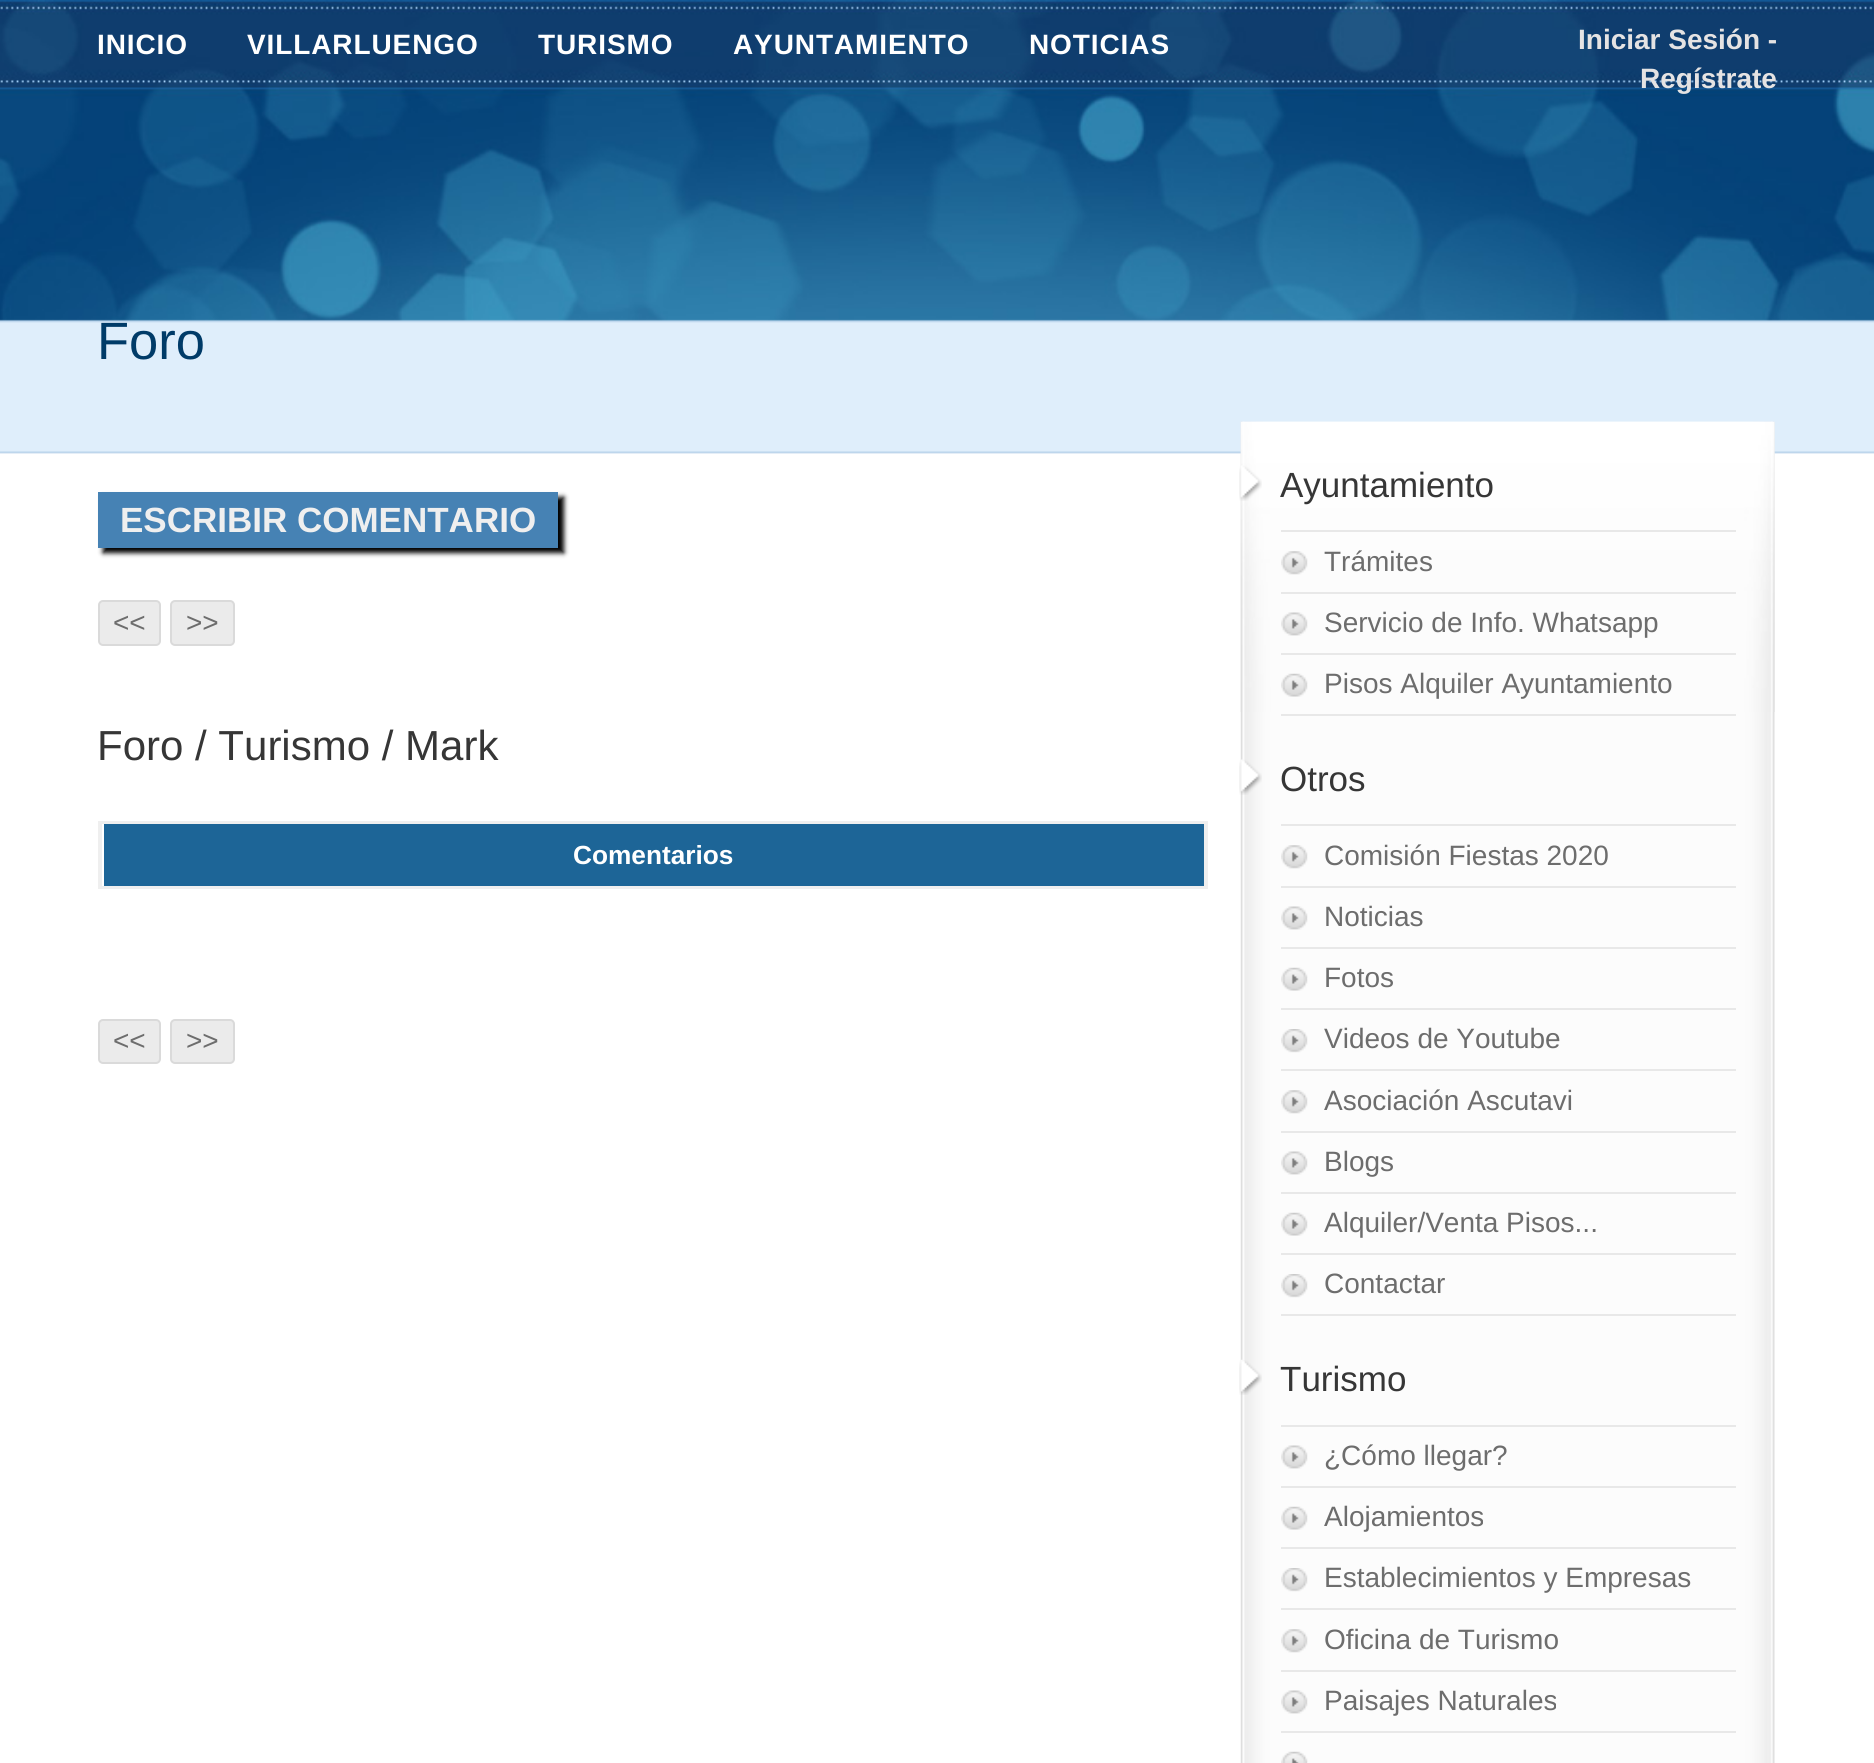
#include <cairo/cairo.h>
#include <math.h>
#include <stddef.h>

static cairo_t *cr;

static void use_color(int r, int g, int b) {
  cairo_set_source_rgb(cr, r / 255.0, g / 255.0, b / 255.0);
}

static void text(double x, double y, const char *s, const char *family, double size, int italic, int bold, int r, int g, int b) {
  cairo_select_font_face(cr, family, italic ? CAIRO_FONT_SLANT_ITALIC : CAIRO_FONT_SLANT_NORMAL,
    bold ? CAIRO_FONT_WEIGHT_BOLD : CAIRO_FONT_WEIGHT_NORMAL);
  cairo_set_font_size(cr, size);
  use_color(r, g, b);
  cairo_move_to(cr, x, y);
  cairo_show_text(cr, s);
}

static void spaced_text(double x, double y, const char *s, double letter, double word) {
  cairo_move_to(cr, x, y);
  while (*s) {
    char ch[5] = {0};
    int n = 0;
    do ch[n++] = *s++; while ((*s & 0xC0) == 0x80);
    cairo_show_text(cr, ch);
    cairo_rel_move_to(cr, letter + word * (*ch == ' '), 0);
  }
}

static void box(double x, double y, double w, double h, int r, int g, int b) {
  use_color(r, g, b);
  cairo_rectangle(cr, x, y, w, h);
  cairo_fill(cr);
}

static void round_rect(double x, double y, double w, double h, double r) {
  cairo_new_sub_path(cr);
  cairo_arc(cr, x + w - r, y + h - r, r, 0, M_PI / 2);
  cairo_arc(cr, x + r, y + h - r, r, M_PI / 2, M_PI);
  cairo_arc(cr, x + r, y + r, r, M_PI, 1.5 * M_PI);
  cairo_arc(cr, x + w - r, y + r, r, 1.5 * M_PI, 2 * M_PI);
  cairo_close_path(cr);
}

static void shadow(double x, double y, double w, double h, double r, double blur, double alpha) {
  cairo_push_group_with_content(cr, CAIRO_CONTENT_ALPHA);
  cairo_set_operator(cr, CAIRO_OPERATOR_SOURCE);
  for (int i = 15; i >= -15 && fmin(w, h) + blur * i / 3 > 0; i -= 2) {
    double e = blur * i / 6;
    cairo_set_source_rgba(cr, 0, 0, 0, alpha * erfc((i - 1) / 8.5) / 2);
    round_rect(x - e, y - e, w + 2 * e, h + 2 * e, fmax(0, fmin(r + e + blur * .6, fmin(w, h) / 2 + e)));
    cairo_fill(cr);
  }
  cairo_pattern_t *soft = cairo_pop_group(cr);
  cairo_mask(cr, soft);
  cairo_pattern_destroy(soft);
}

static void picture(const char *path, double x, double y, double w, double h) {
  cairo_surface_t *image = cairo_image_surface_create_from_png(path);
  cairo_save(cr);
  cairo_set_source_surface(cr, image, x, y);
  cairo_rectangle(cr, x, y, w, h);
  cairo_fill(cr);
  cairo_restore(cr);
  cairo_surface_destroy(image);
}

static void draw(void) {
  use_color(255, 255, 255);
  cairo_paint(cr);
  picture("img_01.png", 0, 0, 1874, 321);
  picture("img_02.png", 0, 319, 1874, 259);
  use_color(0, 0, 0);
  shadow(103, 497, 461, 56, 0, 2.5, 1);
  box(98, 492, 460, 56, 70, 130, 180);
  use_color(235, 235, 235);
  round_rect(99, 601, 61, 44, 4);
  cairo_fill_preserve(cr);
  use_color(218, 218, 218);
  cairo_stroke(cr);
  use_color(235, 235, 235);
  round_rect(171, 601, 63, 44, 4);
  cairo_fill_preserve(cr);
  use_color(218, 218, 218);
  cairo_stroke(cr);
  box(98, 821, 1110, 68, 239, 239, 239);
  box(104, 824, 1100, 62, 29, 101, 151);
  box(102, 824, 2, 62, 255, 255, 255);
  use_color(235, 235, 235);
  round_rect(99, 1020, 61, 43, 4);
  cairo_fill_preserve(cr);
  use_color(218, 218, 218);
  cairo_stroke(cr);
  use_color(235, 235, 235);
  round_rect(171, 1020, 63, 43, 4);
  cairo_fill_preserve(cr);
  use_color(218, 218, 218);
  cairo_stroke(cr);
  picture("img_03.png", 1240, 421, 535, 1342);
  picture("img_04.png", 1240, 421, 535, 291);
  picture("img_05.png", 1239, 465, 23, 36);
  box(1281, 530, 455, 2, 232, 232, 232);
  picture("img_06.png", 1281, 551, 27, 24);
  box(1281, 592, 455, 2, 232, 232, 232);
  picture("img_07.png", 1281, 612, 27, 24);
  box(1281, 653, 455, 2, 232, 232, 232);
  picture("img_08.png", 1281, 673, 27, 24);
  box(1281, 714, 455, 2, 232, 232, 232);
  picture("img_09.png", 1239, 759, 23, 36);
  box(1281, 824, 455, 2, 232, 232, 232);
  picture("img_06.png", 1281, 845, 27, 24);
  box(1281, 886, 455, 2, 232, 232, 232);
  picture("img_07.png", 1281, 906, 27, 24);
  box(1281, 947, 455, 2, 232, 232, 232);
  picture("img_08.png", 1281, 967, 27, 24);
  box(1281, 1008, 455, 2, 232, 232, 232);
  picture("img_10.png", 1281, 1029, 27, 24);
  box(1281, 1069, 455, 2, 232, 232, 232);
  picture("img_06.png", 1281, 1090, 27, 24);
  box(1281, 1131, 455, 2, 232, 232, 232);
  picture("img_07.png", 1281, 1151, 27, 24);
  box(1281, 1192, 455, 2, 232, 232, 232);
  picture("img_08.png", 1281, 1212, 27, 24);
  box(1281, 1253, 455, 2, 232, 232, 232);
  picture("img_10.png", 1281, 1274, 27, 24);
  box(1281, 1314, 455, 2, 232, 232, 232);
  picture("img_11.png", 1239, 1359, 23, 36);
  box(1281, 1425, 455, 2, 232, 232, 232);
  picture("img_07.png", 1281, 1445, 27, 24);
  box(1281, 1486, 455, 2, 232, 232, 232);
  picture("img_08.png", 1281, 1506, 27, 24);
  box(1281, 1547, 455, 2, 232, 232, 232);
  picture("img_10.png", 1281, 1568, 27, 24);
  box(1281, 1608, 455, 2, 232, 232, 232);
  picture("img_06.png", 1281, 1629, 27, 24);
  box(1281, 1670, 455, 2, 232, 232, 232);
  picture("img_07.png", 1281, 1690, 27, 24);
  box(1281, 1731, 455, 2, 232, 232, 232);
  picture("img_12.png", 1281, 1751, 27, 12);
  cairo_select_font_face(cr, "Liberation Sans", CAIRO_FONT_SLANT_NORMAL, CAIRO_FONT_WEIGHT_BOLD);
  cairo_set_font_size(cr, 28);
  use_color(255, 255, 255);
  spaced_text(97, 54, "INICIO", 0.9, 0);
  spaced_text(247, 54, "VILLARLUENGO", 0.9, 0);
  spaced_text(538, 54, "TURISMO", 0.9, 0);
  spaced_text(733, 54, "AYUNTAMIENTO", 0.9, 0);
  spaced_text(1029, 54, "NOTICIAS", 0.9, 0);
  text(1578, 49, "Iniciar Sesión -", "Liberation Sans", 28, 0, 1, 229, 227, 227);
  text(1640, 88, "Regístrate", "Liberation Sans", 28, 0, 1, 229, 227, 227);
  text(97, 359, "Foro", "Liberation Sans", 52.5, 0, 0, 0, 59, 104);
  text(120, 532, "ESCRIBIR COMENTARIO", "Liberation Sans", 35, 0, 1, 239, 239, 239);
  text(113, 632, "<<", "Liberation Sans", 28, 0, 0, 109, 109, 109);
  text(186, 632, ">>", "Liberation Sans", 28, 0, 0, 109, 109, 109);
  text(97, 760, "Foro / Turismo / Mark", "Liberation Sans", 42, 0, 0, 54, 54, 54);
  text(573, 864, "Comentarios", "Liberation Sans", 26.25, 0, 1, 255, 255, 255);
  text(113, 1050, "<<", "Liberation Sans", 28, 0, 0, 109, 109, 109);
  text(186, 1050, ">>", "Liberation Sans", 28, 0, 0, 109, 109, 109);
  text(1280, 497, "Ayuntamiento", "Liberation Sans", 35, 0, 0, 54, 54, 54);
  text(1324, 571, "Trámites", "Liberation Sans", 28, 0, 0, 109, 109, 109);
  text(1324, 632, "Servicio de Info. Whatsapp", "Liberation Sans", 28, 0, 0, 109, 109, 109);
  text(1324, 693, "Pisos Alquiler Ayuntamiento", "Liberation Sans", 28, 0, 0, 109, 109, 109);
  text(1280, 791, "Otros", "Liberation Sans", 35, 0, 0, 54, 54, 54);
  text(1324, 865, "Comisión Fiestas 2020", "Liberation Sans", 28, 0, 0, 109, 109, 109);
  text(1324, 926, "Noticias", "Liberation Sans", 28, 0, 0, 109, 109, 109);
  text(1324, 987, "Fotos", "Liberation Sans", 28, 0, 0, 109, 109, 109);
  text(1324, 1048, "Videos de Youtube", "Liberation Sans", 28, 0, 0, 109, 109, 109);
  text(1324, 1110, "Asociación Ascutavi", "Liberation Sans", 28, 0, 0, 109, 109, 109);
  text(1324, 1171, "Blogs", "Liberation Sans", 28, 0, 0, 109, 109, 109);
  text(1324, 1232, "Alquiler/Venta Pisos...", "Liberation Sans", 28, 0, 0, 109, 109, 109);
  text(1324, 1293, "Contactar", "Liberation Sans", 28, 0, 0, 109, 109, 109);
  text(1280, 1391, "Turismo", "Liberation Sans", 35, 0, 0, 54, 54, 54);
  text(1324, 1465, "¿Cómo llegar?", "Liberation Sans", 28, 0, 0, 109, 109, 109);
  text(1324, 1526, "Alojamientos", "Liberation Sans", 28, 0, 0, 109, 109, 109);
  text(1324, 1587, "Establecimientos y Empresas", "Liberation Sans", 28, 0, 0, 109, 109, 109);
  text(1324, 1649, "Oficina de Turismo", "Liberation Sans", 28, 0, 0, 109, 109, 109);
  text(1324, 1710, "Paisajes Naturales", "Liberation Sans", 28, 0, 0, 109, 109, 109);
}

int main(void) {
  cairo_surface_t *surface = cairo_image_surface_create(CAIRO_FORMAT_RGB24, 1874, 1763);
  cr = cairo_create(surface);
  cairo_font_options_t *options = cairo_font_options_create();
  cairo_font_options_set_hint_metrics(options, CAIRO_HINT_METRICS_OFF);
  cairo_font_options_set_hint_style(options, CAIRO_HINT_STYLE_NONE);
  cairo_set_font_options(cr, options);
  cairo_set_miter_limit(cr, 4);
  draw();
  cairo_surface_write_to_png(surface, "out.png");
  cairo_font_options_destroy(options);
  cairo_destroy(cr);
  cairo_surface_destroy(surface);
  return 0;
}
